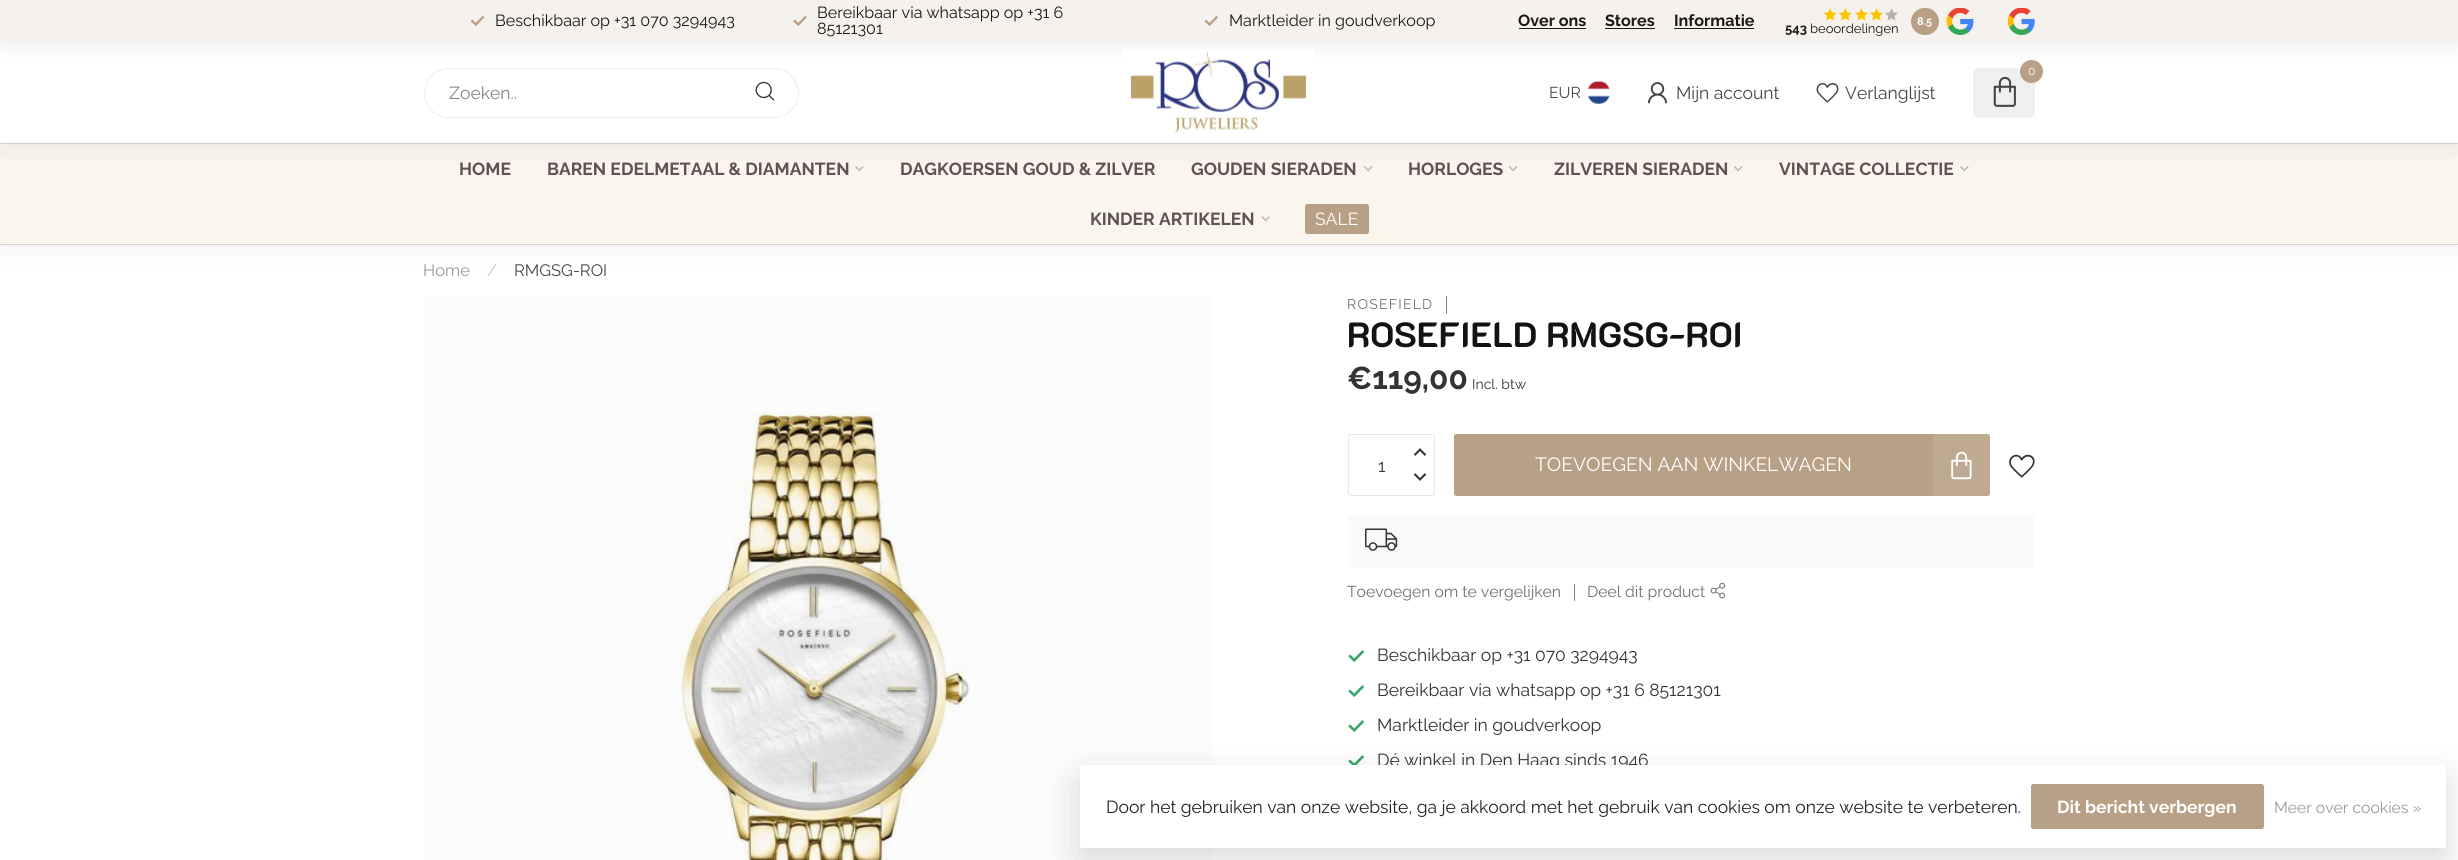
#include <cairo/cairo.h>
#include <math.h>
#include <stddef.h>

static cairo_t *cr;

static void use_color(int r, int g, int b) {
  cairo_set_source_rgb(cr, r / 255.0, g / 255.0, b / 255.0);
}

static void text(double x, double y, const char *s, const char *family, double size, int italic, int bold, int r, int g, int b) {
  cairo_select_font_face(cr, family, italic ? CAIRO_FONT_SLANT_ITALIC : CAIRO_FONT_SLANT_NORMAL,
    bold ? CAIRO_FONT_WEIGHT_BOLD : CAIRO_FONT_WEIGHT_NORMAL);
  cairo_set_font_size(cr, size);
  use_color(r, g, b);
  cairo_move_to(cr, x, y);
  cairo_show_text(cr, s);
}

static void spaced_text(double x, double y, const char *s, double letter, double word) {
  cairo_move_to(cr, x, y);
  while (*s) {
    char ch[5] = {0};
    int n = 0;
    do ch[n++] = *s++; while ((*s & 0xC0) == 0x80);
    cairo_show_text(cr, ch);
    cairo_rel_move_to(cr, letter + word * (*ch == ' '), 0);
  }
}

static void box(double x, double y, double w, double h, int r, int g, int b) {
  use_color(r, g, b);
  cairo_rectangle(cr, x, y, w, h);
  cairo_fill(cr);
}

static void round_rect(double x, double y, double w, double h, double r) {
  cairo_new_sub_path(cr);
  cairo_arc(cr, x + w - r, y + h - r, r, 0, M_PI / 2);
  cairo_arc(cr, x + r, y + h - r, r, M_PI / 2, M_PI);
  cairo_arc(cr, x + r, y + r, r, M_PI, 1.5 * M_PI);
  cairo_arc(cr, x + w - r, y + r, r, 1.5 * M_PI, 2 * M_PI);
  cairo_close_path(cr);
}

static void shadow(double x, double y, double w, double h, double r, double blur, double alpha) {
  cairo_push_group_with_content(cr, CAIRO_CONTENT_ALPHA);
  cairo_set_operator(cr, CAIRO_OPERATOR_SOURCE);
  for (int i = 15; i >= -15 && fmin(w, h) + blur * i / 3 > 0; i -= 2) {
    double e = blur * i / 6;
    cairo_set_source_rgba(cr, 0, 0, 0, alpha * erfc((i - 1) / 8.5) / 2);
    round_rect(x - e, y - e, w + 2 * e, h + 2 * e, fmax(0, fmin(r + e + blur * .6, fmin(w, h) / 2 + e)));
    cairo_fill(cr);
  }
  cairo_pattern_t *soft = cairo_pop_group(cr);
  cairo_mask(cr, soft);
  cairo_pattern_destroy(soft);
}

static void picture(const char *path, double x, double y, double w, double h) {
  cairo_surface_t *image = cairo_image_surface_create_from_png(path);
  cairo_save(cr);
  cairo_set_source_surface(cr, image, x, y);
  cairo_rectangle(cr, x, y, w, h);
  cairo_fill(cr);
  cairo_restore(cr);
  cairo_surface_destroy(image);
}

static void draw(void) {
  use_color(255, 255, 255);
  cairo_paint(cr);
  box(424, 296, 787, 564, 252, 252, 252);
  use_color(0, 0, 0);
  shadow(0, 143, 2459, 102, 0, 14, 0.08);
  box(0, 144, 2458, 100, 251, 246, 237);
  box(0, 143, 2458, 1, 214, 214, 214);
  picture("img_15.png", 855, 166, 9, 6);
  picture("img_16.png", 1364, 166, 9, 6);
  picture("img_16.png", 1509, 166, 9, 6);
  picture("img_16.png", 1734, 166, 9, 6);
  picture("img_15.png", 1960, 166, 9, 6);
  use_color(0, 0, 0);
  shadow(0, 0, 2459, 143, 0, 14, 0.08);
  box(0, 43, 2458, 100, 255, 255, 255);
  use_color(0, 0, 0);
  shadow(0, 0, 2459, 43, 0, 14, 0.08);
  box(0, 0, 2458, 43, 245, 241, 237);
  picture("img_01.png", 470, 15, 15, 11);
  picture("img_02.png", 793, 15, 14, 11);
  picture("img_03.png", 1204, 15, 14, 11);
  box(1519, 28, 67, 1, 27, 24, 21);
  box(1605, 28, 50, 1, 27, 24, 21);
  box(1674, 28, 80, 1, 27, 24, 21);
  use_color(183, 160, 133);
  round_rect(1911, 8, 28, 27, 13.5);
  cairo_fill(cr);
  picture("img_04.png", 1824, 8, 13, 13);
  picture("img_04.png", 1839, 8, 13, 13);
  picture("img_05.png", 1855, 8, 13, 13);
  picture("img_05.png", 1870, 8, 13, 13);
  picture("img_06.png", 1885, 8, 13, 13);
  picture("img_07.png", 1946, 8, 28, 27);
  picture("img_08.png", 2007, 8, 28, 27);
  round_rect(424.5, 68.5, 374, 49, 24.5);
  use_color(236, 236, 236);
  cairo_set_line_width(cr, 1);
  cairo_stroke(cr);
  picture("img_09.png", 755, 81, 20, 20);
  picture("img_10.png", 1121, 49, 193, 84);
  use_color(239, 239, 239);
  round_rect(1973, 68, 62, 50, 6);
  cairo_fill(cr);
  use_color(183, 160, 133);
  cairo_arc(cr, 2031.5, 71.5, 11.5, 0, 2 * M_PI);
  cairo_fill(cr);
  picture("img_11.png", 1993, 76, 23, 31);
  picture("img_12.png", 1588, 80, 22, 24);
  picture("img_13.png", 1647, 82, 21, 22);
  picture("img_14.png", 1816, 83, 23, 20);
  box(0, 244, 2458, 1, 214, 214, 214);
  picture("img_17.png", 1261, 216, 9, 6);
  use_color(183, 160, 133);
  round_rect(1305, 204, 64, 30, 2.5);
  cairo_fill(cr);
  picture("img_18.png", 676, 411, 295, 449);
  box(1446, 296, 1, 18, 133, 133, 133);
  round_rect(1348.5, 434.5, 86, 61, 2);
  use_color(232, 232, 232);
  cairo_stroke(cr);
  picture("img_19.png", 1413, 448, 14, 8);
  picture("img_20.png", 1413, 473, 14, 8);
  use_color(183, 160, 133);
  round_rect(1454, 434, 536, 62, 2.5);
  cairo_fill(cr);
  picture("img_21.png", 1951, 451, 21, 29);
  cairo_set_source_rgba(cr, 1, 1, 1, 0.1);
  cairo_rectangle(cr, 1933, 434, 57, 62);
  cairo_fill(cr);
  picture("img_22.png", 2009, 454, 26, 24);
  use_color(250, 250, 250);
  round_rect(1348, 515, 687, 53, 2.5);
  cairo_fill(cr);
  picture("img_23.png", 1365, 528, 33, 23);
  box(1574, 584, 1, 17, 133, 133, 133);
  picture("img_24.png", 1710, 582, 16, 17);
  picture("img_25.png", 1348, 650, 17, 12);
  picture("img_25.png", 1348, 685, 17, 12);
  picture("img_25.png", 1348, 720, 17, 12);
  picture("img_26.png", 1348, 755, 17, 10);
  use_color(0, 0, 0);
  shadow(1080, 778, 1366, 82, 2.5, 19, 0.15);
  text(495, 26, "Beschikbaar op +31 070 3294943", "Raleway", 16.1, 0, 0, 27, 24, 21);
  text(817, 18, "Bereikbaar via whatsapp op +31 6", "Raleway", 16.1, 0, 0, 27, 24, 21);
  text(817, 34, "85121301", "Raleway", 16.1, 0, 0, 27, 24, 21);
  text(1229, 26, "Marktleider in goudverkoop", "Raleway", 16.1, 0, 0, 27, 24, 21);
  text(1518, 26, "Over ons", "Raleway", 16.1, 0, 1, 27, 24, 21);
  text(1605, 26, "Stores", "Raleway", 16.1, 0, 1, 27, 24, 21);
  text(1674, 26, "Informatie", "Raleway", 16.1, 0, 1, 27, 24, 21);
  text(1917, 25, "8.5", "Raleway", 11, 0, 1, 255, 255, 255);
  text(1785, 33, "543", "Raleway", 13, 0, 1, 27, 24, 21);
  text(1810, 33, "beoordelingen", "Raleway", 13, 0, 0, 27, 24, 21);
  text(449, 99, "Zoeken..", "Raleway", 17.5, 0, 0, 133, 133, 133);
  text(2028, 75, "0", "Raleway", 12, 0, 0, 255, 255, 255);
  text(1549, 98, "EUR", "Raleway", 15.75, 0, 0, 71, 71, 71);
  text(1676, 99, "Mijn account", "Raleway", 17.5, 0, 0, 71, 71, 71);
  text(1845, 99, "Verlanglijst", "Raleway", 17.5, 0, 0, 71, 71, 71);
  text(459, 175, "HOME", "Raleway", 17.5, 0, 1, 97, 81, 85);
  text(547, 175, "BAREN EDELMETAAL & DIAMANTEN", "Raleway", 17.5, 0, 1, 97, 81, 85);
  text(900, 175, "DAGKOERSEN GOUD & ZILVER", "Raleway", 17.5, 0, 1, 97, 81, 85);
  text(1191, 175, "GOUDEN SIERADEN", "Raleway", 17.5, 0, 1, 97, 81, 85);
  text(1408, 175, "HORLOGES", "Raleway", 17.5, 0, 1, 97, 81, 85);
  text(1554, 175, "ZILVEREN SIERADEN", "Raleway", 17.5, 0, 1, 97, 81, 85);
  text(1779, 175, "VINTAGE COLLECTIE", "Raleway", 17.5, 0, 1, 97, 81, 85);
  text(1090, 225, "KINDER ARTIKELEN", "Raleway", 17.5, 0, 1, 97, 81, 85);
  text(1315, 225, "SALE", "Raleway", 17.5, 0, 0, 255, 255, 255);
  text(423, 276, "Home", "Raleway", 16.5, 0, 0, 153, 153, 153);
  text(487, 276, "/", "Raleway", 16.5, 0, 0, 194, 194, 194);
  text(514, 276, "RMGSG-ROI", "Raleway", 16.5, 0, 0, 71, 71, 71);
  cairo_set_font_size(cr, 14);
  use_color(112, 112, 112);
  spaced_text(1347, 309, "ROSEFIELD", 1.25, 0);
  text(1347, 347, "ROSEFIELD RMGSG-ROI", "K2D", 35, 0, 1, 19, 19, 19);
  text(1347, 389, "€119,00", "Raleway", 31.5, 0, 1, 51, 51, 51);
  text(1472, 389, "Incl. btw", "Raleway", 14, 0, 0, 51, 51, 51);
  text(1378, 472, "1", "Raleway", 17.5, 0, 0, 51, 51, 51);
  text(1535, 471, "TOEVOEGEN AAN WINKELWAGEN", "Raleway", 19.25, 0, 0, 255, 255, 255);
  text(1347, 597, "Toevoegen om te vergelijken", "Raleway", 15.75, 0, 0, 112, 112, 112);
  text(1587, 597, "Deel dit product", "Raleway", 15.75, 0, 0, 112, 112, 112);
  text(1377, 661, "Beschikbaar op +31 070 3294943", "Raleway", 17.5, 0, 0, 51, 51, 51);
  text(1377, 696, "Bereikbaar via whatsapp op +31 6 85121301", "Raleway", 17.5, 0, 0, 51, 51, 51);
  text(1377, 731, "Marktleider in goudverkoop", "Raleway", 17.5, 0, 0, 51, 51, 51);
  text(1377, 766, "Dé winkel in Den Haag sinds 1946", "Raleway", 17.5, 0, 0, 51, 51, 51);
  use_color(255, 255, 255);
  round_rect(1080, 765, 1366, 83, 2.5);
  cairo_fill(cr);
  text(1106, 813, "Door het gebruiken van onze website, ga je akkoord met het gebruik van cookies om onze website te verbeteren.", "Raleway", 17.5, 0, 0, 34, 34, 34);
  use_color(183, 160, 133);
  round_rect(2031, 784, 233, 45, 2.5);
  cairo_fill(cr);
  text(2057, 813, "Dit bericht verbergen", "Raleway", 17.5, 0, 1, 255, 255, 255);
  text(2274, 813, "Meer over cookies »", "Raleway", 15.75, 0, 0, 153, 153, 153);
}

int main(void) {
  cairo_surface_t *surface = cairo_image_surface_create(CAIRO_FORMAT_RGB24, 2458, 860);
  cr = cairo_create(surface);
  cairo_font_options_t *options = cairo_font_options_create();
  cairo_font_options_set_hint_metrics(options, CAIRO_HINT_METRICS_OFF);
  cairo_font_options_set_hint_style(options, CAIRO_HINT_STYLE_NONE);
  cairo_set_font_options(cr, options);
  cairo_set_miter_limit(cr, 4);
  draw();
  cairo_surface_write_to_png(surface, "out.png");
  cairo_font_options_destroy(options);
  cairo_destroy(cr);
  cairo_surface_destroy(surface);
  return 0;
}
